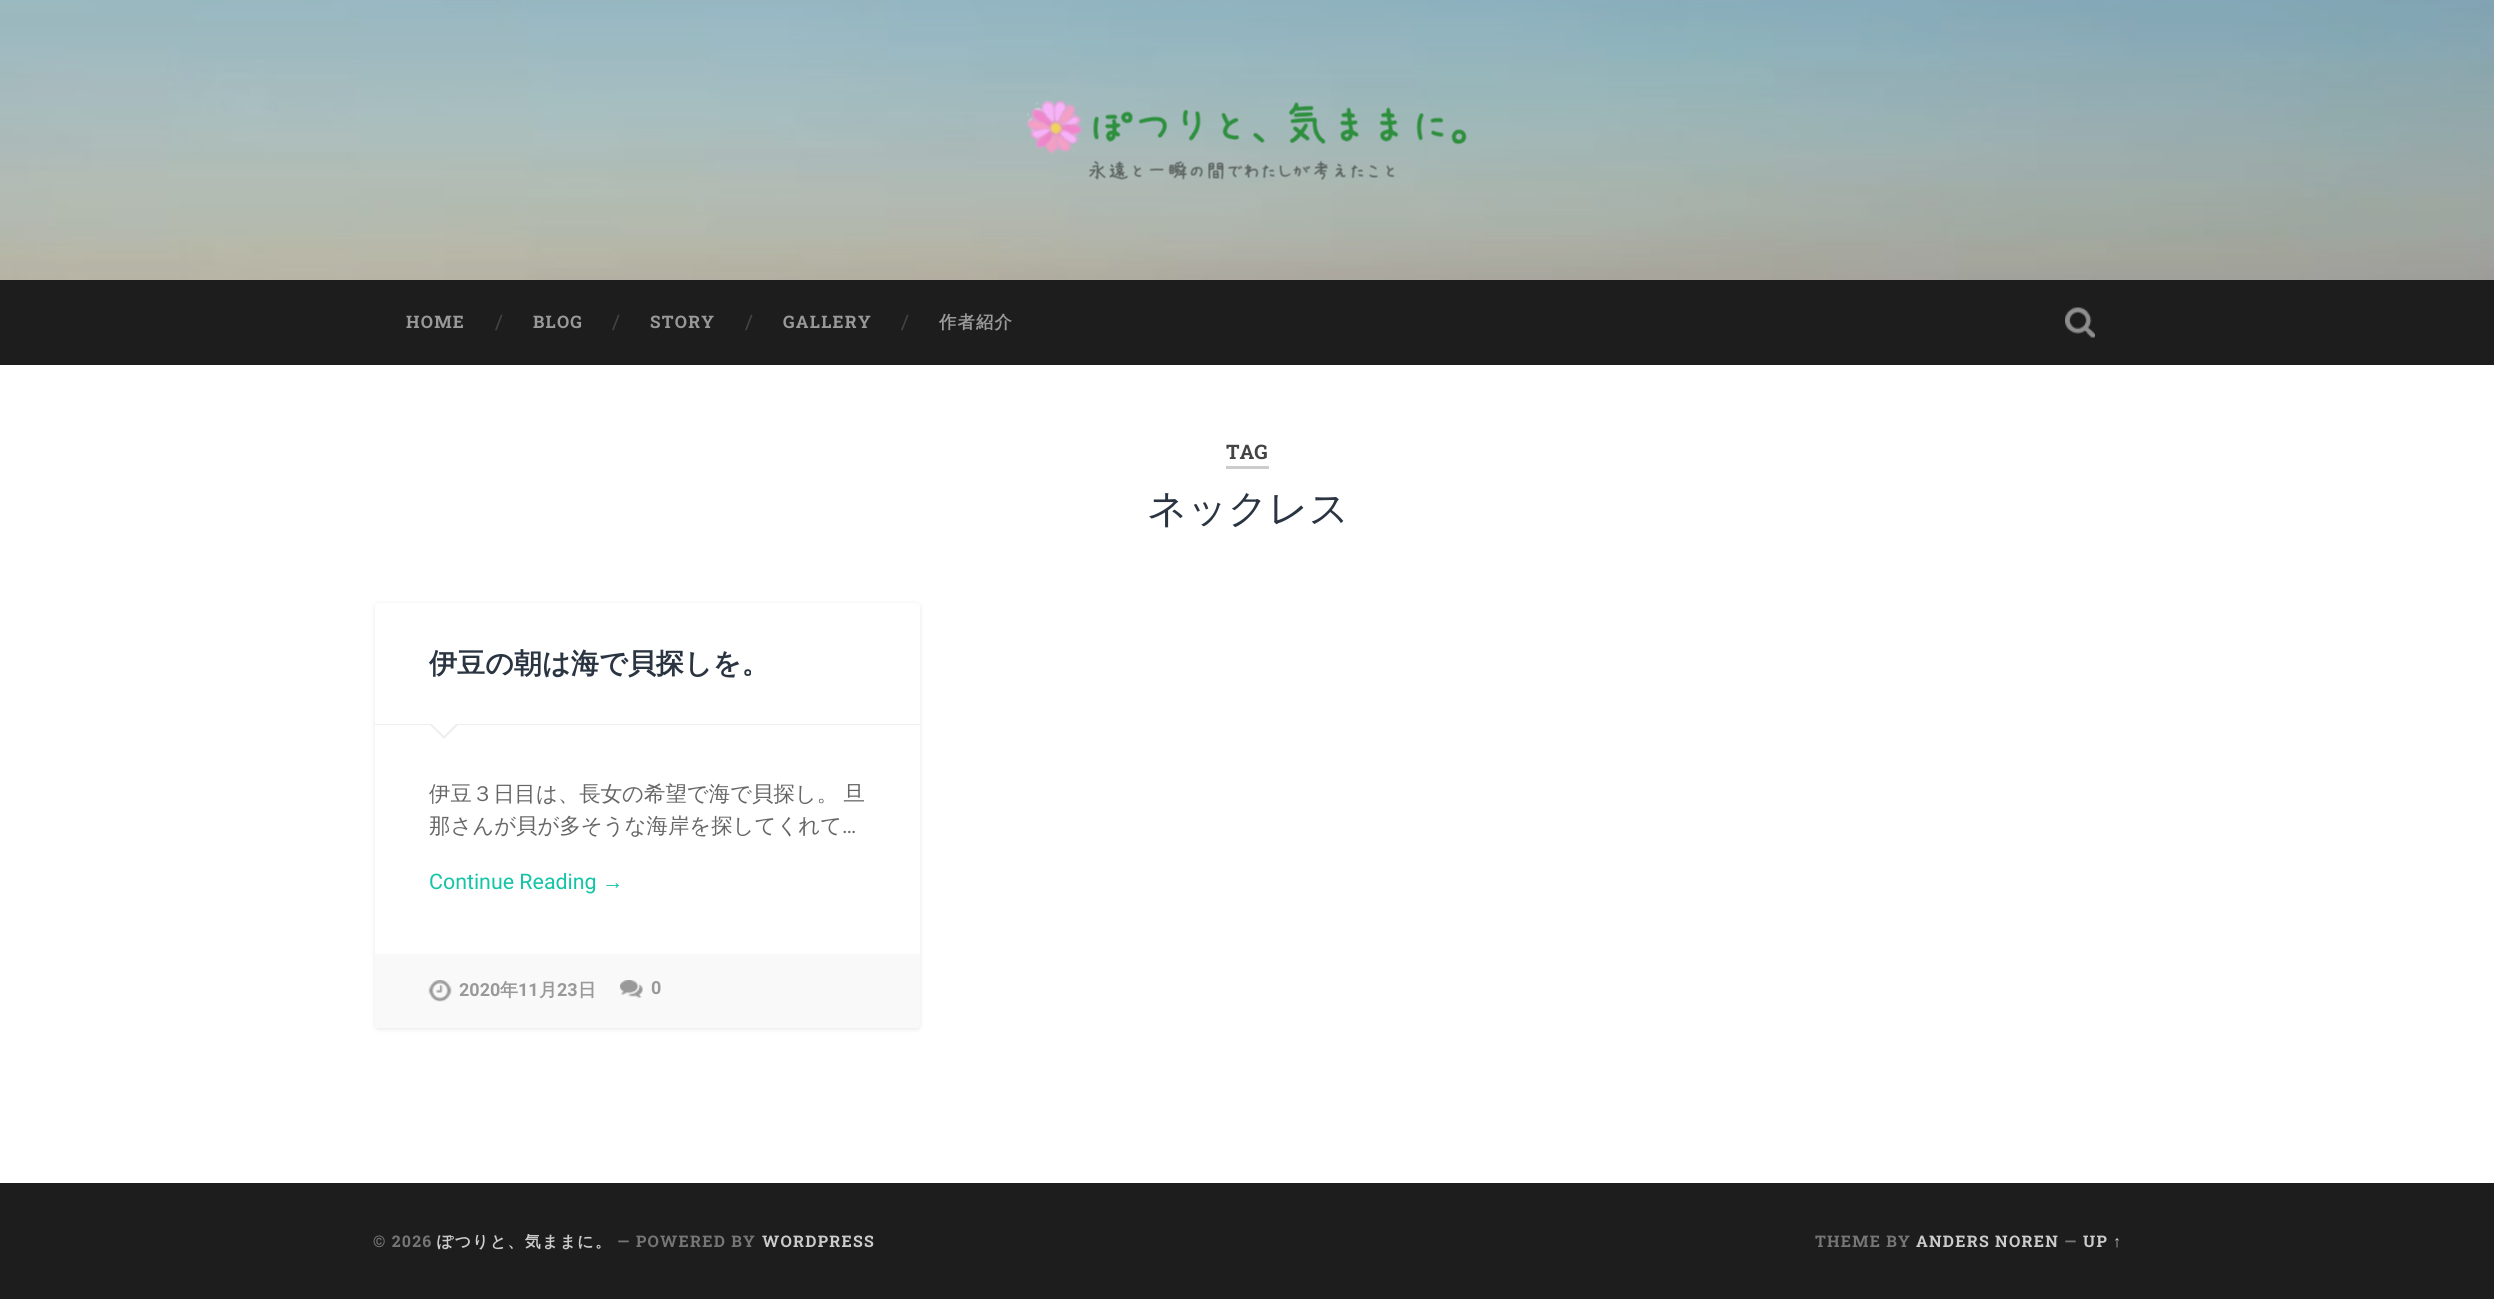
#include <cairo/cairo.h>
#include <math.h>
#include <stddef.h>

static cairo_t *cr;

static void use_color(int r, int g, int b) {
  cairo_set_source_rgb(cr, r / 255.0, g / 255.0, b / 255.0);
}

static void text(double x, double y, const char *s, const char *family, double size, int italic, int bold, int r, int g, int b) {
  cairo_select_font_face(cr, family, italic ? CAIRO_FONT_SLANT_ITALIC : CAIRO_FONT_SLANT_NORMAL,
    bold ? CAIRO_FONT_WEIGHT_BOLD : CAIRO_FONT_WEIGHT_NORMAL);
  cairo_set_font_size(cr, size);
  use_color(r, g, b);
  cairo_move_to(cr, x, y);
  cairo_show_text(cr, s);
}

static void spaced_text(double x, double y, const char *s, double letter, double word) {
  cairo_move_to(cr, x, y);
  while (*s) {
    char ch[5] = {0};
    int n = 0;
    do ch[n++] = *s++; while ((*s & 0xC0) == 0x80);
    cairo_show_text(cr, ch);
    cairo_rel_move_to(cr, letter + word * (*ch == ' '), 0);
  }
}

static void box(double x, double y, double w, double h, int r, int g, int b) {
  use_color(r, g, b);
  cairo_rectangle(cr, x, y, w, h);
  cairo_fill(cr);
}

static void round_rect(double x, double y, double w, double h, double r) {
  cairo_new_sub_path(cr);
  cairo_arc(cr, x + w - r, y + h - r, r, 0, M_PI / 2);
  cairo_arc(cr, x + r, y + h - r, r, M_PI / 2, M_PI);
  cairo_arc(cr, x + r, y + r, r, M_PI, 1.5 * M_PI);
  cairo_arc(cr, x + w - r, y + r, r, 1.5 * M_PI, 2 * M_PI);
  cairo_close_path(cr);
}

static void shadow(double x, double y, double w, double h, double r, double blur, double alpha) {
  cairo_push_group_with_content(cr, CAIRO_CONTENT_ALPHA);
  cairo_set_operator(cr, CAIRO_OPERATOR_SOURCE);
  for (int i = 15; i >= -15 && fmin(w, h) + blur * i / 3 > 0; i -= 2) {
    double e = blur * i / 6;
    cairo_set_source_rgba(cr, 0, 0, 0, alpha * erfc((i - 1) / 8.5) / 2);
    round_rect(x - e, y - e, w + 2 * e, h + 2 * e, fmax(0, fmin(r + e + blur * .6, fmin(w, h) / 2 + e)));
    cairo_fill(cr);
  }
  cairo_pattern_t *soft = cairo_pop_group(cr);
  cairo_mask(cr, soft);
  cairo_pattern_destroy(soft);
}

static void picture(const char *path, double x, double y, double w, double h) {
  cairo_surface_t *image = cairo_image_surface_create_from_png(path);
  cairo_save(cr);
  cairo_set_source_surface(cr, image, x, y);
  cairo_rectangle(cr, x, y, w, h);
  cairo_fill(cr);
  cairo_restore(cr);
  cairo_surface_destroy(image);
}

static void draw(void) {
  use_color(255, 255, 255);
  cairo_paint(cr);
  picture("img_01.png", 0, 0, 2494, 280);
  picture("img_02.png", 1027, 100, 440, 80);
  box(0, 280, 2494, 85, 29, 29, 29);
  picture("img_03.png", 2065, 307, 30, 31);
  box(1226, 466, 43, 3, 204, 204, 204);
  use_color(0, 0, 0);
  shadow(375, 604, 545, 425, 4, 2.5, 0.1);
  use_color(255, 255, 255);
  round_rect(375, 603, 545, 425, 4);
  cairo_fill(cr);
  box(375, 724, 545, 1, 238, 238, 238);
  cairo_new_path(cr);
  cairo_move_to(cr, 429, 724);
  cairo_line_to(cr, 459, 724);
  cairo_line_to(cr, 444, 739);
  cairo_close_path(cr);
  cairo_fill(cr);
  use_color(255, 255, 255);
  cairo_new_path(cr);
  cairo_move_to(cr, 430, 722.5);
  cairo_line_to(cr, 457.5, 722.5);
  cairo_line_to(cr, 444, 736);
  cairo_close_path(cr);
  cairo_fill(cr);
  use_color(249, 249, 249);
  cairo_new_path(cr);
  cairo_move_to(cr, 375, 954);
  cairo_line_to(cr, 920, 954);
  cairo_line_to(cr, 920, 1024);
  cairo_curve_to(cr, 920, 1026, 918, 1028, 916, 1028);
  cairo_line_to(cr, 379, 1028);
  cairo_curve_to(cr, 377, 1028, 375, 1026, 375, 1024);
  cairo_close_path(cr);
  cairo_fill(cr);
  picture("img_04.png", 428, 980, 24, 22);
  picture("img_05.png", 620, 980, 23, 18);
  box(0, 1183, 2494, 116, 29, 29, 29);
  cairo_select_font_face(cr, "Roboto Slab", CAIRO_FONT_SLANT_NORMAL, CAIRO_FONT_WEIGHT_BOLD);
  cairo_set_font_size(cr, 17.25);
  use_color(153, 153, 153);
  spaced_text(406, 328, "HOME", 1.25, 0);
  text(495, 329, "/", "Roboto Slab", 20, 0, 0, 68, 68, 68);
  cairo_select_font_face(cr, "Roboto Slab", CAIRO_FONT_SLANT_NORMAL, CAIRO_FONT_WEIGHT_BOLD);
  cairo_set_font_size(cr, 17.25);
  use_color(153, 153, 153);
  spaced_text(533, 328, "BLOG", 1.25, 0);
  text(612, 329, "/", "Roboto Slab", 20, 0, 0, 68, 68, 68);
  cairo_select_font_face(cr, "Roboto Slab", CAIRO_FONT_SLANT_NORMAL, CAIRO_FONT_WEIGHT_BOLD);
  cairo_set_font_size(cr, 17.25);
  use_color(153, 153, 153);
  spaced_text(650, 328, "STORY", 1.25, 0);
  text(745, 329, "/", "Roboto Slab", 20, 0, 0, 68, 68, 68);
  cairo_select_font_face(cr, "Roboto Slab", CAIRO_FONT_SLANT_NORMAL, CAIRO_FONT_WEIGHT_BOLD);
  cairo_set_font_size(cr, 17.25);
  use_color(153, 153, 153);
  spaced_text(783, 328, "GALLERY", 1.25, 0);
  text(901, 329, "/", "Roboto Slab", 20, 0, 0, 68, 68, 68);
  cairo_select_font_face(cr, "WenQuanYi Zen Hei", CAIRO_FONT_SLANT_NORMAL, CAIRO_FONT_WEIGHT_BOLD);
  cairo_set_font_size(cr, 17.25);
  use_color(153, 153, 153);
  spaced_text(939, 328, "作者紹介", 1.25, 0);
  text(1226, 459, "TAG", "Roboto Slab", 20, 0, 1, 68, 68, 68);
  text(1147, 522, "ネックレス", "WenQuanYi Zen Hei Medium", 39.5, 0, 0, 43, 53, 66);
  text(429, 673, "伊豆の朝は海で貝探しを。", "WenQuanYi Zen Hei", 28.1, 0, 1, 43, 53, 66);
  cairo_select_font_face(cr, "WenQuanYi Zen Hei Medium", CAIRO_FONT_SLANT_NORMAL, CAIRO_FONT_WEIGHT_NORMAL);
  cairo_set_font_size(cr, 21.4);
  use_color(102, 102, 102);
  spaced_text(429, 801, "伊豆３日目は、長女の希望で海で貝探し。 旦", 0, -1);
  text(429, 833, "那さんが貝が多そうな海岸を探してくれて", "WenQuanYi Zen Hei Medium", 21.4, 0, 0, 102, 102, 102);
  text(842, 833, "…", "Roboto", 21.4, 0, 0, 102, 102, 102);
  text(429, 889, "Continue Reading", "Roboto", 21.4, 0, 0, 19, 196, 165);
  text(602, 889, "→", "Liberation Sans", 21.4, 0, 0, 19, 196, 165);
  text(459, 996, "2020", "Roboto", 18, 0, 1, 153, 153, 153);
  text(500, 996, "年", "WenQuanYi Zen Hei", 18, 0, 1, 153, 153, 153);
  text(518, 996, "11", "Roboto", 18, 0, 1, 153, 153, 153);
  text(539, 996, "月", "WenQuanYi Zen Hei", 18, 0, 1, 153, 153, 153);
  text(557, 996, "23", "Roboto", 18, 0, 1, 153, 153, 153);
  text(578, 996, "日", "WenQuanYi Zen Hei", 18, 0, 1, 153, 153, 153);
  text(651, 994, "0", "Roboto", 18, 0, 1, 153, 153, 153);
  cairo_select_font_face(cr, "Roboto Slab", CAIRO_FONT_SLANT_NORMAL, CAIRO_FONT_WEIGHT_BOLD);
  cairo_set_font_size(cr, 16);
  use_color(118, 118, 118);
  spaced_text(373, 1247, "© 2026", 1.25, 0);
  cairo_select_font_face(cr, "WenQuanYi Zen Hei", CAIRO_FONT_SLANT_NORMAL, CAIRO_FONT_WEIGHT_BOLD);
  use_color(204, 204, 204);
  spaced_text(437, 1247, "ぽつりと、気ままに。", 1.25, 0);
  cairo_select_font_face(cr, "Roboto Slab", CAIRO_FONT_SLANT_NORMAL, CAIRO_FONT_WEIGHT_BOLD);
  use_color(118, 118, 118);
  spaced_text(617, 1247, "— POWERED BY", 1.25, 0);
  use_color(204, 204, 204);
  spaced_text(762, 1247, "WORDPRESS", 1.25, 0);
  use_color(118, 118, 118);
  spaced_text(1815, 1247, "THEME BY", 1.25, 0);
  use_color(204, 204, 204);
  spaced_text(1916, 1247, "ANDERS NOREN", 1.25, 0);
  use_color(118, 118, 118);
  spaced_text(2064, 1247, "—", 1.25, 0);
  use_color(204, 204, 204);
  spaced_text(2083, 1247, "UP", 1.25, 0);
  cairo_select_font_face(cr, "Liberation Sans", CAIRO_FONT_SLANT_NORMAL, CAIRO_FONT_WEIGHT_BOLD);
  spaced_text(2113, 1247, "↑", 1.25, 0);
}

int main(void) {
  cairo_surface_t *surface = cairo_image_surface_create(CAIRO_FORMAT_RGB24, 2494, 1311);
  cr = cairo_create(surface);
  cairo_font_options_t *options = cairo_font_options_create();
  cairo_font_options_set_hint_metrics(options, CAIRO_HINT_METRICS_OFF);
  cairo_font_options_set_hint_style(options, CAIRO_HINT_STYLE_NONE);
  cairo_set_font_options(cr, options);
  cairo_set_miter_limit(cr, 4);
  draw();
  cairo_surface_write_to_png(surface, "out.png");
  cairo_font_options_destroy(options);
  cairo_destroy(cr);
  cairo_surface_destroy(surface);
  return 0;
}
